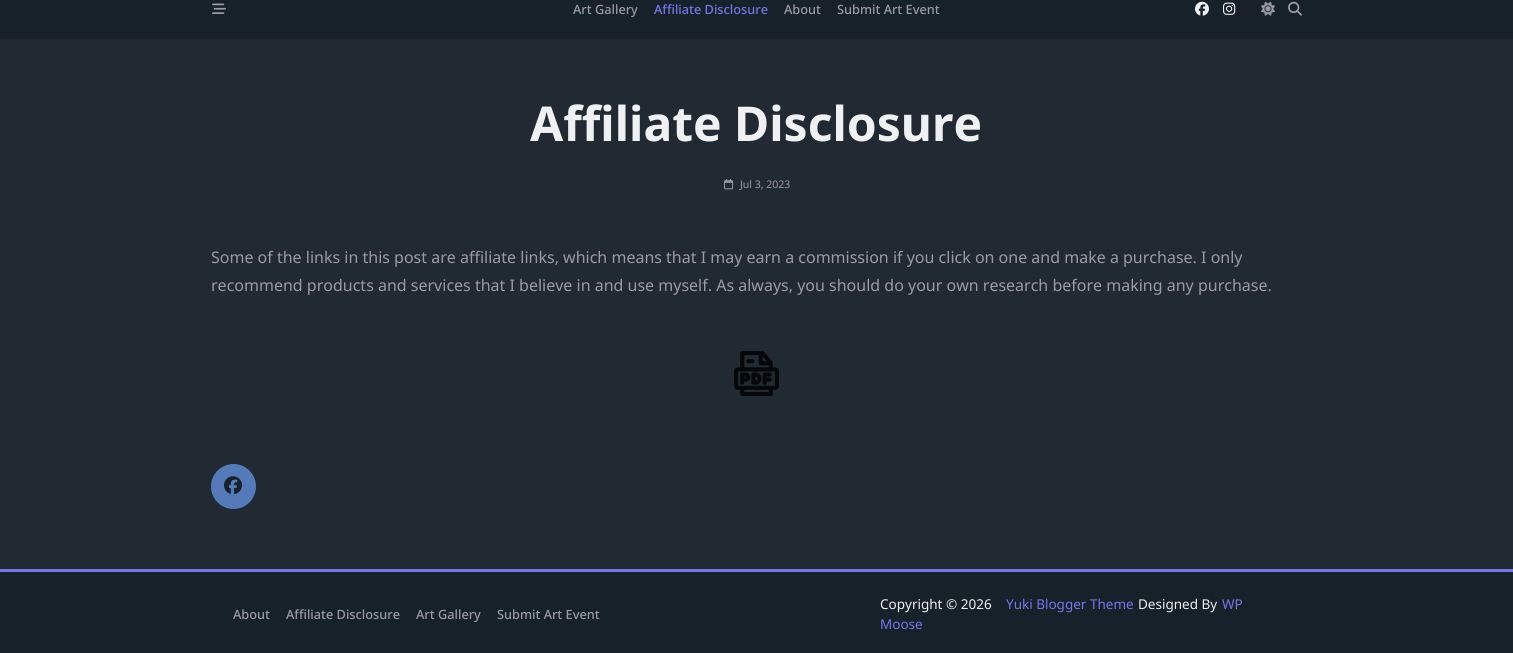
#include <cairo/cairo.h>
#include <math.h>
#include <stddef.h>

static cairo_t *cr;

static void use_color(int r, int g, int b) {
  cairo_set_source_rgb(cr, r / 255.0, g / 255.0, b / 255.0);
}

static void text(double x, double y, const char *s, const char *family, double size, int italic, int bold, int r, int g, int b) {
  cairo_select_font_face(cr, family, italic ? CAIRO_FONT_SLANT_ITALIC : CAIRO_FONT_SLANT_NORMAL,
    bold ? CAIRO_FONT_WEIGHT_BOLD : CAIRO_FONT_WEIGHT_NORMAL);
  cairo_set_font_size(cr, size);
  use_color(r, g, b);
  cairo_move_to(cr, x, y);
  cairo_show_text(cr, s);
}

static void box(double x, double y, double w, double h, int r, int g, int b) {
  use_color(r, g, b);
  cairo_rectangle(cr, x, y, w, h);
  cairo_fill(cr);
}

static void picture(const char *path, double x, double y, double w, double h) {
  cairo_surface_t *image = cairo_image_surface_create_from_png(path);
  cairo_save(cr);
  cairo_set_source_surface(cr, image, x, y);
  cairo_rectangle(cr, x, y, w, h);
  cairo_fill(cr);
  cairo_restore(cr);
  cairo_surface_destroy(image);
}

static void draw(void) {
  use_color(33, 42, 51);
  cairo_paint(cr);
  box(0, 0, 1513, 39, 23, 33, 42);
  picture("img_01.png", 212, 3, 14, 11);
  picture("img_02.png", 1195, 1, 14, 15);
  picture("img_03.png", 1223, 2, 13, 13);
  picture("img_04.png", 1261, 1, 14, 15);
  picture("img_05.png", 1288, 1, 14, 15);
  picture("img_06.png", 724, 179, 10, 11);
  picture("img_07.png", 734, 351, 45, 45);
  use_color(84, 123, 185);
  cairo_arc(cr, 233.5, 486.5, 22.5, 0, 2 * M_PI);
  cairo_fill(cr);
  picture("img_08.png", 224, 476, 18, 19);
  box(0, 572, 1513, 81, 23, 33, 42);
  box(0, 569, 1513, 3, 116, 118, 233);
  text(573, 14, "Art Gallery", "Noto Sans Medium", 12.75, 0, 0, 156, 153, 167);
  text(654, 14, "Affiliate Disclosure", "Noto Sans Medium", 12.75, 0, 0, 116, 118, 233);
  text(784, 14, "About", "Noto Sans Medium", 12.75, 0, 0, 156, 153, 167);
  text(837, 14, "Submit Art Event", "Noto Sans Medium", 12.75, 0, 0, 156, 153, 167);
  text(530, 141, "Affiliate Disclosure", "Noto Sans", 48, 0, 1, 239, 240, 242);
  text(740, 188, "Jul 3, 2023", "Noto Sans", 10.5, 0, 0, 156, 153, 167);
  text(211, 263, "Some of the links in this post are affiliate links, which means that I may earn a commission if you click on one and make a purchase. I only", "Noto Sans", 16, 0, 0, 156, 153, 167);
  text(211, 291, "recommend products and services that I believe in and use myself. As always, you should do your own research before making any purchase.", "Noto Sans", 16, 0, 0, 156, 153, 167);
  text(233, 619, "About", "Noto Sans Medium", 12.75, 0, 0, 156, 153, 167);
  text(286, 619, "Affiliate Disclosure", "Noto Sans Medium", 12.75, 0, 0, 156, 153, 167);
  text(416, 619, "Art Gallery", "Noto Sans Medium", 12.75, 0, 0, 156, 153, 167);
  text(497, 619, "Submit Art Event", "Noto Sans Medium", 12.75, 0, 0, 156, 153, 167);
  text(880, 609, "Copyright © 2026", "Noto Sans", 13.5, 0, 0, 239, 240, 242);
  text(1006, 609, "Yuki Blogger Theme", "Noto Sans", 13.5, 0, 0, 116, 118, 233);
  text(1138, 609, "Designed By", "Noto Sans", 13.5, 0, 0, 239, 240, 242);
  text(1222, 609, "WP", "Noto Sans", 13.5, 0, 0, 116, 118, 233);
  text(880, 629, "Moose", "Noto Sans", 13.5, 0, 0, 116, 118, 233);
}

int main(void) {
  cairo_surface_t *surface = cairo_image_surface_create(CAIRO_FORMAT_RGB24, 1513, 653);
  cr = cairo_create(surface);
  cairo_font_options_t *options = cairo_font_options_create();
  cairo_font_options_set_hint_metrics(options, CAIRO_HINT_METRICS_OFF);
  cairo_font_options_set_hint_style(options, CAIRO_HINT_STYLE_NONE);
  cairo_set_font_options(cr, options);
  cairo_set_miter_limit(cr, 4);
  draw();
  cairo_surface_write_to_png(surface, "out.png");
  cairo_font_options_destroy(options);
  cairo_destroy(cr);
  cairo_surface_destroy(surface);
  return 0;
}
